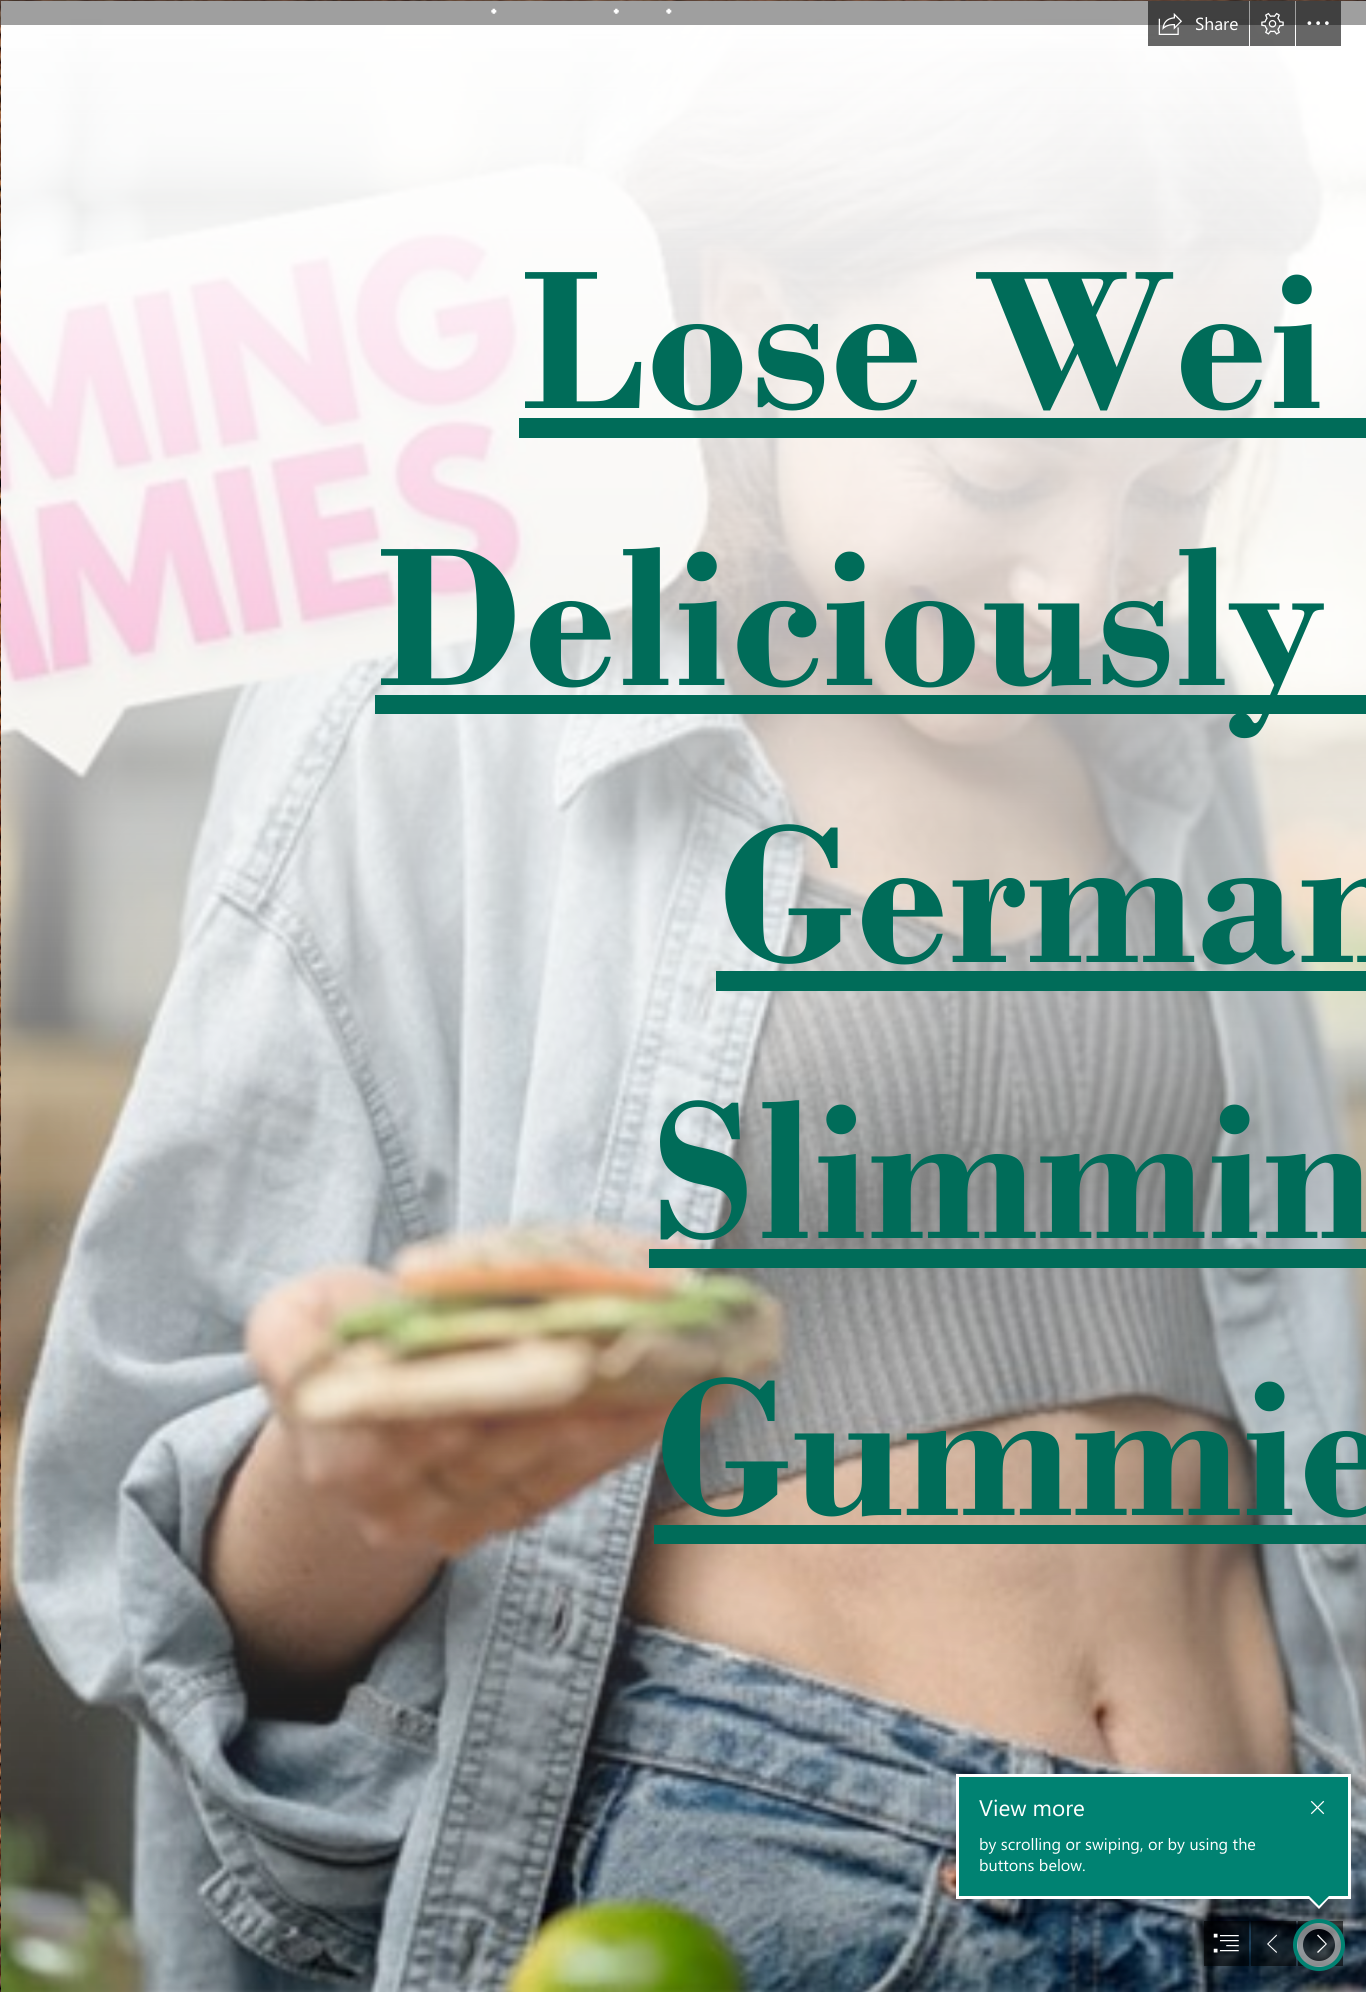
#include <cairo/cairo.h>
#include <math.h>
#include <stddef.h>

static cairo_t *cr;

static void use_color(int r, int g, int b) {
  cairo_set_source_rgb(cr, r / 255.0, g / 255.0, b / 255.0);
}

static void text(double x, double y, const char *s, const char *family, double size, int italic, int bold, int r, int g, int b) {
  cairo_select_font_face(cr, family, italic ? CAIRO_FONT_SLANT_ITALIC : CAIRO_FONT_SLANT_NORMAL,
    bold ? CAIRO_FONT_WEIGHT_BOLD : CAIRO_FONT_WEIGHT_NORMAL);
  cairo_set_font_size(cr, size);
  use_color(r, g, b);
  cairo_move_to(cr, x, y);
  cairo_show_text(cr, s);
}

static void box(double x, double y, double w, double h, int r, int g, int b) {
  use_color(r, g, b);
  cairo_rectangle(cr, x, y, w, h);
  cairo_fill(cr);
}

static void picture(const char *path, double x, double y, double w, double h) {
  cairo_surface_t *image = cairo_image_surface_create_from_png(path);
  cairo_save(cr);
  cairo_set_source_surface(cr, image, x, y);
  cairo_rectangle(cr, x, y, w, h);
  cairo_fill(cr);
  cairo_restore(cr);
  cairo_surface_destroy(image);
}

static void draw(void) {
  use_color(255, 255, 255);
  cairo_paint(cr);
  picture("img_05.png", 0, 0, 1366, 1992);
  picture("img_07.png", 1, 19, 1365, 1973);
  picture("img_06.png", 1, 1, 1365, 1912);
  cairo_set_source_rgba(cr, 0.251, 0.251, 0.251, 0.5);
  cairo_rectangle(cr, 0, 0, 1366, 25);
  cairo_fill(cr);
  cairo_set_source_rgba(cr, 0, 0, 0, 0.6);
  cairo_rectangle(cr, 1148, 1, 101, 45);
  cairo_fill(cr);
  picture("img_01.png", 1158, 13, 24, 22);
  cairo_rectangle(cr, 1250, 1, 45, 45);
  cairo_fill(cr);
  picture("img_02.png", 1261, 12, 23, 23);
  cairo_rectangle(cr, 1296, 1, 45, 45);
  cairo_fill(cr);
  picture("img_03.png", 1307, 21, 22, 4);
  picture("img_04.png", 491, 8, 181, 6);
  box(519, 418, 847, 20, 0, 108, 89);
  box(375, 695, 991, 19, 0, 108, 89);
  box(716, 971, 650, 20, 0, 108, 89);
  box(649, 1249, 717, 19, 0, 108, 89);
  box(654, 1525, 712, 19, 0, 108, 89);
  use_color(0, 130, 114);
  cairo_rectangle(cr, 957.5, 1775.5, 392, 122);
  cairo_fill_preserve(cr);
  use_color(255, 255, 255);
  cairo_set_line_width(cr, 3);
  cairo_stroke(cr);
  picture("img_08.png", 1310, 1800, 15, 15);
  cairo_new_path(cr);
  cairo_move_to(cr, 1306, 1896);
  cairo_line_to(cr, 1331, 1896);
  cairo_line_to(cr, 1319, 1909);
  cairo_close_path(cr);
  cairo_fill(cr);
  use_color(0, 130, 114);
  cairo_new_path(cr);
  cairo_move_to(cr, 1309, 1896);
  cairo_line_to(cr, 1329, 1896);
  cairo_line_to(cr, 1319, 1906);
  cairo_close_path(cr);
  cairo_fill(cr);
  cairo_set_source_rgba(cr, 0, 0, 0, 0.6);
  cairo_rectangle(cr, 1251, 1921, 45, 45);
  cairo_fill(cr);
  cairo_rectangle(cr, 1298, 1921, 45, 45);
  cairo_fill(cr);
  use_color(255, 255, 255);
  cairo_new_path(cr);
  cairo_move_to(cr, 1318, 1953);
  cairo_line_to(cr, 1317, 1952);
  cairo_line_to(cr, 1325.5, 1944);
  cairo_line_to(cr, 1317, 1935.5);
  cairo_line_to(cr, 1318, 1934.5);
  cairo_line_to(cr, 1327, 1944);
  cairo_close_path(cr);
  cairo_fill(cr);
  cairo_arc(cr, 1319, 1945, 20.5, 0, 2 * M_PI);
  cairo_set_source_rgba(cr, 1, 1, 1, 0.5);
  cairo_set_line_width(cr, 9);
  cairo_stroke(cr);
  cairo_arc(cr, 1319, 1945, 24, 0, 2 * M_PI);
  use_color(0, 130, 114);
  cairo_set_line_width(cr, 4);
  cairo_stroke(cr);
  cairo_set_source_rgba(cr, 0, 0, 0, 0.6);
  cairo_rectangle(cr, 1204, 1921, 45, 45);
  cairo_fill(cr);
  picture("img_09.png", 1213, 1933, 26, 20);
  use_color(255, 255, 255);
  cairo_new_path(cr);
  cairo_move_to(cr, 1267, 1944);
  cairo_line_to(cr, 1276.5, 1934.5);
  cairo_line_to(cr, 1277, 1935.5);
  cairo_line_to(cr, 1268.5, 1944);
  cairo_line_to(cr, 1277, 1952);
  cairo_line_to(cr, 1276.5, 1953);
  cairo_close_path(cr);
  cairo_fill(cr);
  text(1195, 30, "Share", "Segoe UI", 17.5, 0, 0, 255, 255, 255);
  text(519, 408, "Lose Wei", "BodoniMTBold", 207.5, 0, 1, 0, 108, 89);
  text(375, 685, "Deliciously", "BodoniMTBold", 207.5, 0, 1, 0, 108, 89);
  text(717, 962, "German", "BodoniMTBold", 207.5, 0, 1, 0, 108, 89);
  text(649, 1238, "Slimmin", "BodoniMTBold", 207.5, 0, 1, 0, 108, 89);
  text(654, 1515, "Gummie", "BodoniMTBold", 207.5, 0, 1, 0, 108, 89);
  text(979, 1816, "View more", "Segoe UI", 22.5, 0, 0, 255, 255, 255);
  text(979, 1850, "by scrolling or swiping, or by using the", "Segoe UI", 16.25, 0, 0, 255, 255, 255);
  text(979, 1871, "buttons below.", "Segoe UI", 16.25, 0, 0, 255, 255, 255);
}

int main(void) {
  cairo_surface_t *surface = cairo_image_surface_create(CAIRO_FORMAT_RGB24, 1366, 1992);
  cr = cairo_create(surface);
  cairo_font_options_t *options = cairo_font_options_create();
  cairo_font_options_set_hint_metrics(options, CAIRO_HINT_METRICS_OFF);
  cairo_font_options_set_hint_style(options, CAIRO_HINT_STYLE_NONE);
  cairo_set_font_options(cr, options);
  cairo_set_miter_limit(cr, 4);
  draw();
  cairo_surface_write_to_png(surface, "out.png");
  cairo_font_options_destroy(options);
  cairo_destroy(cr);
  cairo_surface_destroy(surface);
  return 0;
}
